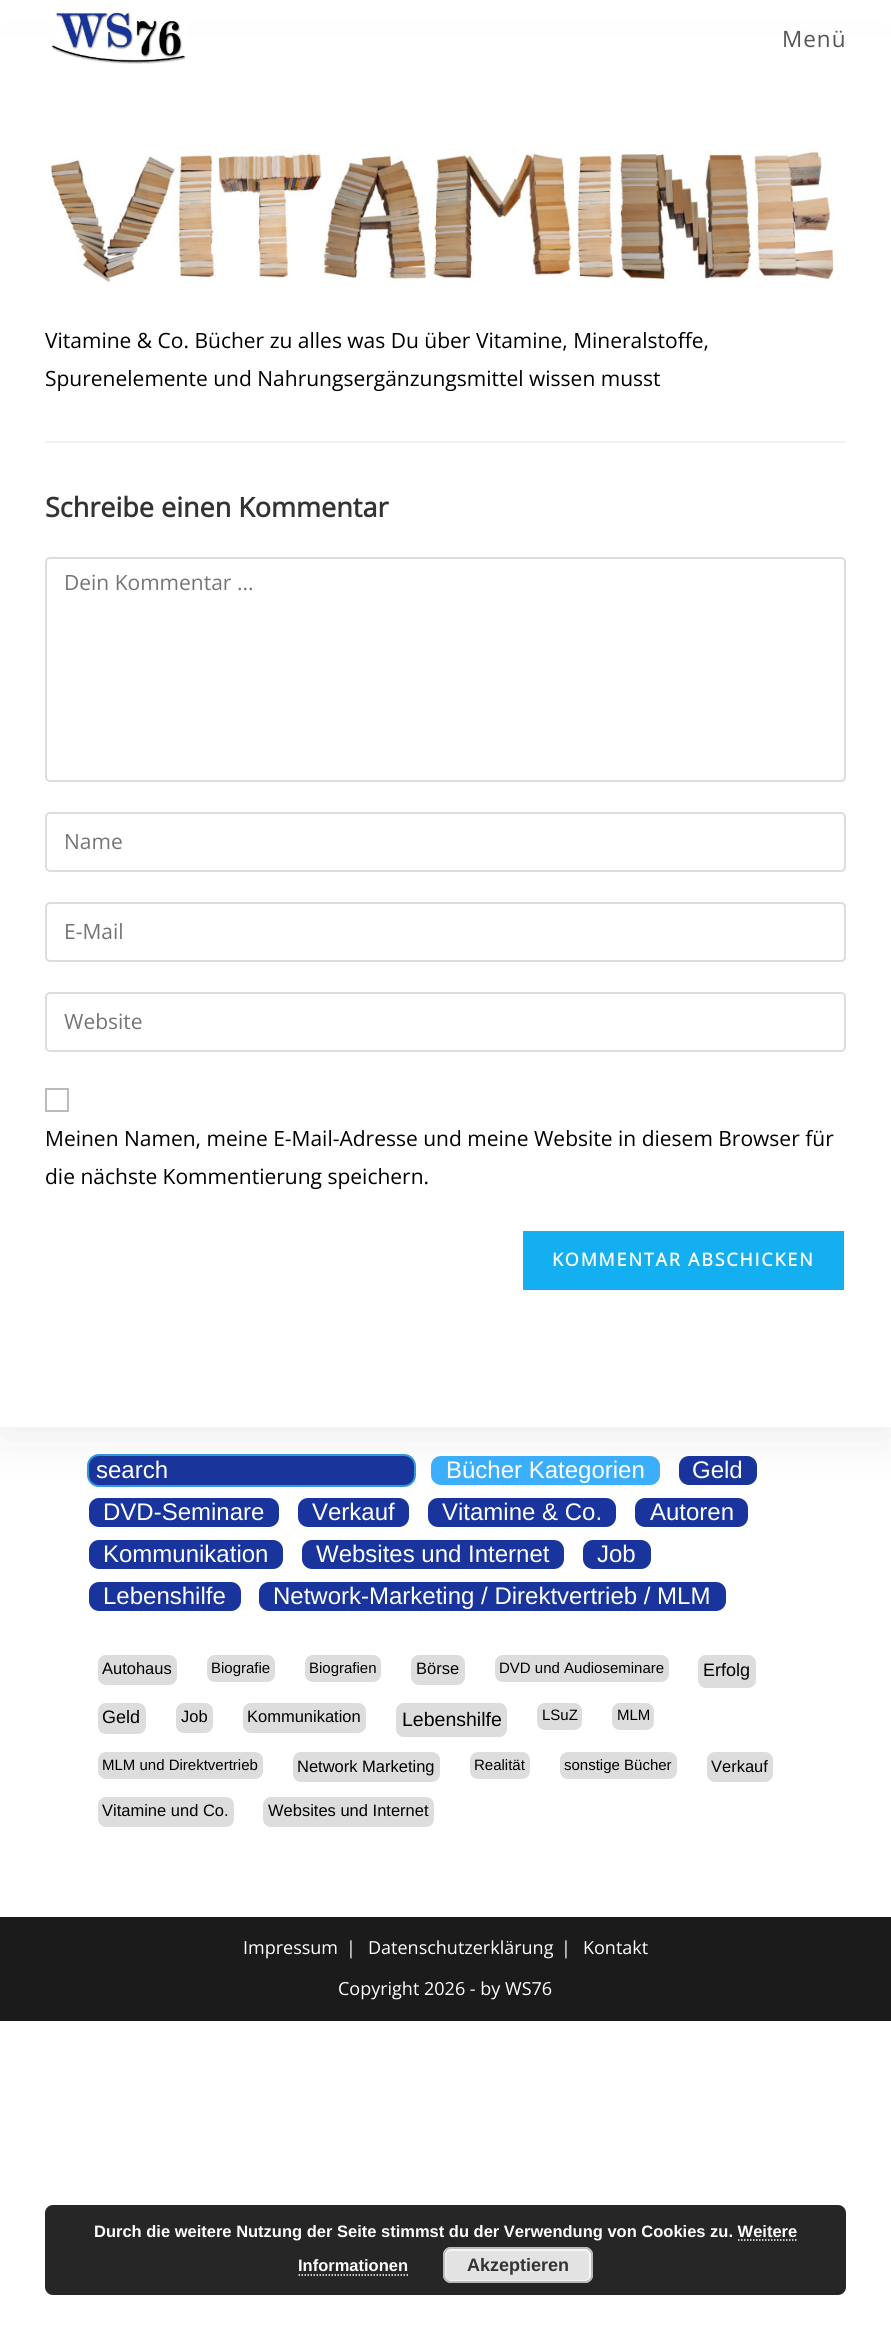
#include <cairo/cairo.h>
#include <math.h>
#include <stddef.h>

static cairo_t *cr;

static void use_color(int r, int g, int b) {
  cairo_set_source_rgb(cr, r / 255.0, g / 255.0, b / 255.0);
}

static void text(double x, double y, const char *s, const char *family, double size, int italic, int bold, int r, int g, int b) {
  cairo_select_font_face(cr, family, italic ? CAIRO_FONT_SLANT_ITALIC : CAIRO_FONT_SLANT_NORMAL,
    bold ? CAIRO_FONT_WEIGHT_BOLD : CAIRO_FONT_WEIGHT_NORMAL);
  cairo_set_font_size(cr, size);
  use_color(r, g, b);
  cairo_move_to(cr, x, y);
  cairo_show_text(cr, s);
}

static void spaced_text(double x, double y, const char *s, double letter, double word) {
  cairo_move_to(cr, x, y);
  while (*s) {
    char ch[5] = {0};
    int n = 0;
    do ch[n++] = *s++; while ((*s & 0xC0) == 0x80);
    cairo_show_text(cr, ch);
    cairo_rel_move_to(cr, letter + word * (*ch == ' '), 0);
  }
}

static void box(double x, double y, double w, double h, int r, int g, int b) {
  use_color(r, g, b);
  cairo_rectangle(cr, x, y, w, h);
  cairo_fill(cr);
}

static void round_rect(double x, double y, double w, double h, double r) {
  cairo_new_sub_path(cr);
  cairo_arc(cr, x + w - r, y + h - r, r, 0, M_PI / 2);
  cairo_arc(cr, x + r, y + h - r, r, M_PI / 2, M_PI);
  cairo_arc(cr, x + r, y + r, r, M_PI, 1.5 * M_PI);
  cairo_arc(cr, x + w - r, y + r, r, 1.5 * M_PI, 2 * M_PI);
  cairo_close_path(cr);
}

static void shadow(double x, double y, double w, double h, double r, double blur, double alpha) {
  cairo_push_group_with_content(cr, CAIRO_CONTENT_ALPHA);
  cairo_set_operator(cr, CAIRO_OPERATOR_SOURCE);
  for (int i = 15; i >= -15 && fmin(w, h) + blur * i / 3 > 0; i -= 2) {
    double e = blur * i / 6;
    cairo_set_source_rgba(cr, 0, 0, 0, alpha * erfc((i - 1) / 8.5) / 2);
    round_rect(x - e, y - e, w + 2 * e, h + 2 * e, fmax(0, fmin(r + e + blur * .6, fmin(w, h) / 2 + e)));
    cairo_fill(cr);
  }
  cairo_pattern_t *soft = cairo_pop_group(cr);
  cairo_mask(cr, soft);
  cairo_pattern_destroy(soft);
}

static void picture(const char *path, double x, double y, double w, double h) {
  cairo_surface_t *image = cairo_image_surface_create_from_png(path);
  cairo_save(cr);
  cairo_set_source_surface(cr, image, x, y);
  cairo_rectangle(cr, x, y, w, h);
  cairo_fill(cr);
  cairo_restore(cr);
  cairo_surface_destroy(image);
}

static void draw(void) {
  use_color(255, 255, 255);
  cairo_paint(cr);
  use_color(25, 53, 157);
  round_rect(88, 1455, 327, 31, 11);
  cairo_fill_preserve(cr);
  use_color(52, 152, 219);
  cairo_stroke(cr);
  use_color(60, 176, 253);
  round_rect(430, 1455, 231, 31, 11);
  cairo_fill_preserve(cr);
  use_color(255, 255, 255);
  cairo_stroke(cr);
  use_color(25, 53, 157);
  round_rect(678, 1455, 80, 31, 11);
  cairo_fill_preserve(cr);
  use_color(255, 255, 255);
  cairo_stroke(cr);
  use_color(25, 53, 157);
  round_rect(88, 1497, 192, 31, 11);
  cairo_fill_preserve(cr);
  use_color(255, 255, 255);
  cairo_stroke(cr);
  use_color(25, 53, 157);
  round_rect(297, 1497, 113, 31, 11);
  cairo_fill_preserve(cr);
  use_color(255, 255, 255);
  cairo_stroke(cr);
  use_color(25, 53, 157);
  round_rect(427, 1497, 190, 31, 11);
  cairo_fill_preserve(cr);
  use_color(255, 255, 255);
  cairo_stroke(cr);
  use_color(25, 53, 157);
  round_rect(634, 1497, 115, 31, 11);
  cairo_fill_preserve(cr);
  use_color(255, 255, 255);
  cairo_stroke(cr);
  use_color(0, 0, 0);
  shadow(0, 75, 891, 1352, 0, 30, 0.1);
  box(0, 37, 891, 1390, 255, 255, 255);
  picture("img_01.png", 51, 11, 135, 53);
  picture("img_02.png", 51, 150, 783, 135);
  box(45, 441, 801, 2, 241, 241, 241);
  round_rect(46, 558, 799, 223, 4);
  use_color(221, 221, 221);
  cairo_stroke(cr);
  round_rect(46, 813, 799, 58, 4);
  cairo_stroke(cr);
  round_rect(46, 903, 799, 58, 4);
  cairo_stroke(cr);
  round_rect(46, 993, 799, 58, 4);
  cairo_stroke(cr);
  cairo_rectangle(cr, 46, 1089, 22, 22);
  use_color(187, 187, 187);
  cairo_stroke(cr);
  box(523, 1231, 321, 59, 19, 175, 240);
  use_color(25, 53, 157);
  round_rect(88, 1539, 196, 31, 11);
  cairo_fill_preserve(cr);
  use_color(255, 255, 255);
  cairo_stroke(cr);
  use_color(25, 53, 157);
  round_rect(301, 1539, 264, 31, 11);
  cairo_fill_preserve(cr);
  use_color(255, 255, 255);
  cairo_stroke(cr);
  use_color(25, 53, 157);
  round_rect(582, 1539, 70, 31, 11);
  cairo_fill_preserve(cr);
  use_color(255, 255, 255);
  cairo_stroke(cr);
  use_color(25, 53, 157);
  round_rect(88, 1581, 154, 31, 11);
  cairo_fill_preserve(cr);
  use_color(255, 255, 255);
  cairo_stroke(cr);
  use_color(25, 53, 157);
  round_rect(258, 1581, 469, 31, 11);
  cairo_fill_preserve(cr);
  use_color(255, 255, 255);
  cairo_stroke(cr);
  use_color(221, 221, 221);
  round_rect(98, 1655, 79, 30, 8);
  cairo_fill(cr);
  round_rect(207, 1655, 68, 27, 8);
  cairo_fill(cr);
  round_rect(305, 1655, 76, 27, 8);
  cairo_fill(cr);
  round_rect(411, 1655, 54, 30, 8);
  cairo_fill(cr);
  round_rect(495, 1655, 174, 27, 8);
  cairo_fill(cr);
  round_rect(698, 1655, 58, 33, 8);
  cairo_fill(cr);
  round_rect(98, 1703, 48, 31, 8);
  cairo_fill(cr);
  round_rect(176, 1703, 37, 30, 8);
  cairo_fill(cr);
  round_rect(243, 1703, 123, 30, 8);
  cairo_fill(cr);
  round_rect(396, 1703, 111, 34, 8);
  cairo_fill(cr);
  round_rect(537, 1703, 45, 27, 8);
  cairo_fill(cr);
  round_rect(612, 1703, 42, 27, 8);
  cairo_fill(cr);
  round_rect(98, 1752, 165, 27, 8);
  cairo_fill(cr);
  round_rect(293, 1752, 147, 30, 8);
  cairo_fill(cr);
  round_rect(470, 1752, 60, 27, 8);
  cairo_fill(cr);
  round_rect(560, 1752, 117, 27, 8);
  cairo_fill(cr);
  round_rect(707, 1752, 66, 30, 8);
  cairo_fill(cr);
  round_rect(98, 1797, 136, 30, 8);
  cairo_fill(cr);
  round_rect(263, 1797, 171, 30, 8);
  cairo_fill(cr);
  box(0, 1917, 891, 104, 27, 27, 27);
  use_color(38, 38, 38);
  round_rect(45, 2205, 801, 90, 8);
  cairo_fill(cr);
  cairo_new_path(cr);
  cairo_move_to(cr, 738, 2240);
  cairo_line_to(cr, 798, 2240);
  use_color(255, 255, 255);
  cairo_set_line_width(cr, 1.5);
  cairo_set_dash(cr, (double[]){1.5, 1.5}, 2, 0);
  cairo_stroke(cr);
  cairo_new_path(cr);
  cairo_move_to(cr, 298.5, 2275);
  cairo_line_to(cr, 408, 2275);
  cairo_stroke(cr);
  use_color(227, 227, 227);
  round_rect(443, 2247, 150, 36, 8);
  cairo_fill(cr);
  round_rect(445, 2250, 145, 31, 5);
  use_color(246, 246, 246);
  cairo_set_line_width(cr, 2);
  cairo_set_dash(cr, NULL, 0, 0);
  cairo_stroke(cr);
  round_rect(444, 2248, 148, 34, 7);
  use_color(187, 187, 187);
  cairo_stroke(cr);
  cairo_select_font_face(cr, "Open Sans", CAIRO_FONT_SLANT_NORMAL, CAIRO_FONT_WEIGHT_NORMAL);
  cairo_set_font_size(cr, 22.5);
  use_color(85, 85, 85);
  spaced_text(782, 47, "Menü", 1, 0);
  text(45, 348, "Vitamine & Co. Bücher zu alles was Du über Vitamine, Mineralstoffe,", "Open Sans", 21, 0, 0, 0, 0, 0);
  text(45, 386, "Spurenelemente und Nahrungsergänzungsmittel wissen musst", "Open Sans", 21, 0, 0, 0, 0, 0);
  text(45, 517, "Schreibe einen Kommentar", "Open Sans", 27, 0, 1, 51, 51, 51);
  text(64, 590, "Dein Kommentar ...", "Open Sans", 21, 0, 0, 117, 117, 117);
  text(64, 849, "Name", "Open Sans", 21, 0, 0, 117, 117, 117);
  text(64, 939, "E-Mail", "Open Sans", 21, 0, 0, 117, 117, 117);
  text(64, 1029, "Website", "Open Sans", 21, 0, 0, 117, 117, 117);
  text(45, 1146, "Meinen Namen, meine E-Mail-Adresse und meine Website in diesem Browser für", "Open Sans", 21, 0, 0, 0, 0, 0);
  text(45, 1184, "die nächste Kommentierung speichern.", "Open Sans", 21, 0, 0, 0, 0, 0);
  cairo_select_font_face(cr, "Open Sans", CAIRO_FONT_SLANT_NORMAL, CAIRO_FONT_WEIGHT_BOLD);
  cairo_set_font_size(cr, 18);
  use_color(255, 255, 255);
  spaced_text(552, 1266, "KOMMENTAR ABSCHICKEN", 1.8, 0);
  text(96, 1478, "search", "Liberation Sans", 24, 0, 0, 255, 255, 255);
  text(446, 1478, "Bücher Kategorien", "Liberation Sans", 24, 0, 0, 255, 255, 255);
  text(692, 1478, "Geld", "Liberation Sans", 24, 0, 0, 255, 255, 255);
  text(103, 1520, "DVD-Seminare", "Liberation Sans", 24, 0, 0, 255, 255, 255);
  text(312, 1520, "Verkauf", "Liberation Sans", 24, 0, 0, 255, 255, 255);
  text(442, 1520, "Vitamine & Co.", "Liberation Sans", 24, 0, 0, 255, 255, 255);
  text(650, 1520, "Autoren", "Liberation Sans", 24, 0, 0, 255, 255, 255);
  text(103, 1562, "Kommunikation", "Liberation Sans", 24, 0, 0, 255, 255, 255);
  text(316, 1562, "Websites und Internet", "Liberation Sans", 24, 0, 0, 255, 255, 255);
  text(597, 1562, "Job", "Liberation Sans", 24, 0, 0, 255, 255, 255);
  text(103, 1604, "Lebenshilfe", "Liberation Sans", 24, 0, 0, 255, 255, 255);
  text(273, 1604, "Network-Marketing / Direktvertrieb / MLM", "Liberation Sans", 24, 0, 0, 255, 255, 255);
  text(102, 1674, "Autohaus", "Liberation Sans", 16.5, 0, 0, 0, 0, 0);
  text(211, 1673, "Biografie", "Liberation Sans", 15, 0, 0, 0, 0, 0);
  text(309, 1673, "Biografien", "Liberation Sans", 15, 0, 0, 0, 0, 0);
  text(416, 1674, "Börse", "Liberation Sans", 16.5, 0, 0, 0, 0, 0);
  text(499, 1673, "DVD und Audioseminare", "Liberation Sans", 15, 0, 0, 0, 0, 0);
  text(703, 1676, "Erfolg", "Liberation Sans", 18, 0, 0, 0, 0, 0);
  text(102, 1723, "Geld", "Liberation Sans", 18, 0, 0, 0, 0, 0);
  text(181, 1722, "Job", "Liberation Sans", 16.5, 0, 0, 0, 0, 0);
  text(247, 1722, "Kommunikation", "Liberation Sans", 16.5, 0, 0, 0, 0, 0);
  text(402, 1726, "Lebenshilfe", "Liberation Sans", 19.5, 0, 0, 0, 0, 0);
  text(542, 1720, "LSuZ", "Liberation Sans", 15, 0, 0, 0, 0, 0);
  text(617, 1720, "MLM", "Liberation Sans", 15, 0, 0, 0, 0, 0);
  text(102, 1770, "MLM und Direktvertrieb", "Liberation Sans", 15, 0, 0, 0, 0, 0);
  text(297, 1772, "Network Marketing", "Liberation Sans", 16.5, 0, 0, 0, 0, 0);
  text(474, 1770, "Realität", "Liberation Sans", 15, 0, 0, 0, 0, 0);
  text(564, 1770, "sonstige Bücher", "Liberation Sans", 15, 0, 0, 0, 0, 0);
  text(711, 1772, "Verkauf", "Liberation Sans", 16.5, 0, 0, 0, 0, 0);
  text(102, 1816, "Vitamine und Co.", "Liberation Sans", 16.5, 0, 0, 0, 0, 0);
  text(268, 1816, "Websites und Internet", "Liberation Sans", 16.5, 0, 0, 0, 0, 0);
  text(243, 1954, "Impressum", "Open Sans", 18, 0, 0, 255, 255, 255);
  text(346, 1954, "|", "Open Sans", 18, 0, 0, 255, 255, 255);
  text(368, 1954, "Datenschutzerklärung", "Open Sans", 18, 0, 0, 255, 255, 255);
  text(561, 1954, "|", "Open Sans", 18, 0, 0, 255, 255, 255);
  text(583, 1954, "Kontakt", "Open Sans", 18, 0, 0, 255, 255, 255);
  text(338, 1995, "Copyright 2026 - by WS76", "Open Sans", 18, 0, 0, 255, 255, 255);
  text(94, 2237, "Durch die weitere Nutzung der Seite stimmst du der Verwendung von Cookies zu. Weitere", "Liberation Sans", 16.5, 0, 1, 255, 255, 255);
  text(298, 2271, "Informationen", "Liberation Sans", 16.5, 0, 1, 255, 255, 255);
  text(467, 2271, "Akzeptieren", "Liberation Sans", 18, 0, 1, 51, 51, 51);
}

int main(void) {
  cairo_surface_t *surface = cairo_image_surface_create(CAIRO_FORMAT_RGB24, 891, 2339);
  cr = cairo_create(surface);
  cairo_font_options_t *options = cairo_font_options_create();
  cairo_font_options_set_hint_metrics(options, CAIRO_HINT_METRICS_OFF);
  cairo_font_options_set_hint_style(options, CAIRO_HINT_STYLE_NONE);
  cairo_set_font_options(cr, options);
  cairo_set_miter_limit(cr, 4);
  draw();
  cairo_surface_write_to_png(surface, "out.png");
  cairo_font_options_destroy(options);
  cairo_destroy(cr);
  cairo_surface_destroy(surface);
  return 0;
}
